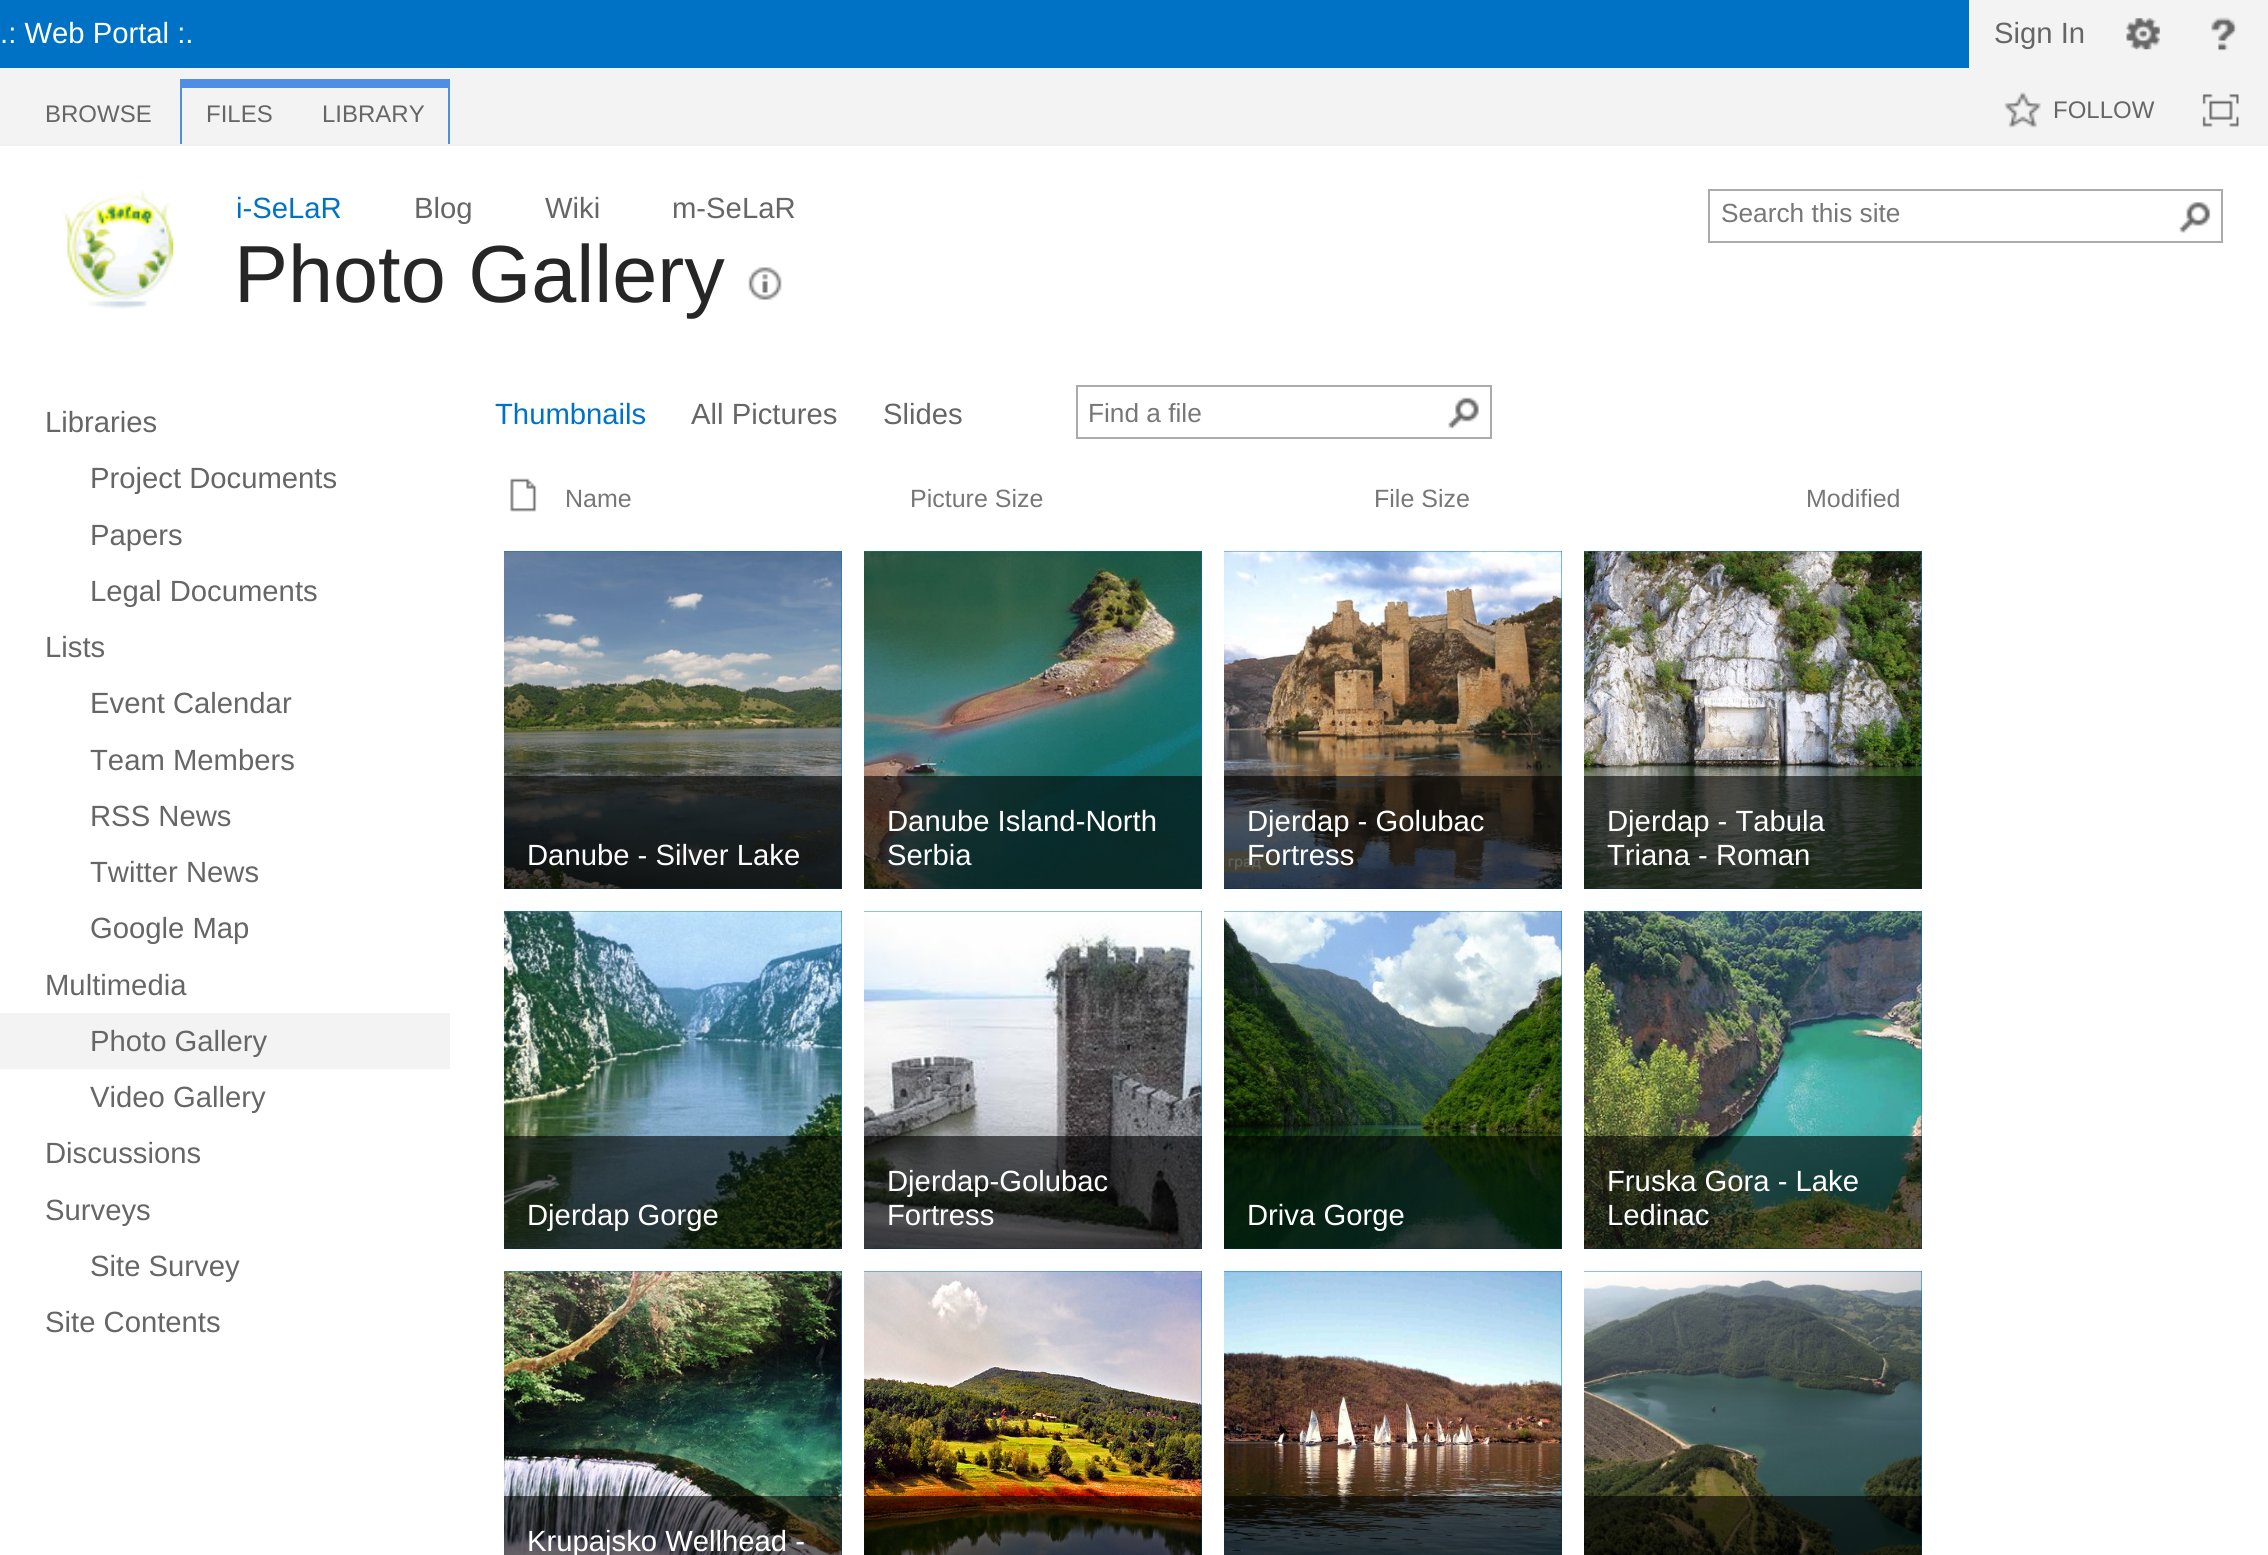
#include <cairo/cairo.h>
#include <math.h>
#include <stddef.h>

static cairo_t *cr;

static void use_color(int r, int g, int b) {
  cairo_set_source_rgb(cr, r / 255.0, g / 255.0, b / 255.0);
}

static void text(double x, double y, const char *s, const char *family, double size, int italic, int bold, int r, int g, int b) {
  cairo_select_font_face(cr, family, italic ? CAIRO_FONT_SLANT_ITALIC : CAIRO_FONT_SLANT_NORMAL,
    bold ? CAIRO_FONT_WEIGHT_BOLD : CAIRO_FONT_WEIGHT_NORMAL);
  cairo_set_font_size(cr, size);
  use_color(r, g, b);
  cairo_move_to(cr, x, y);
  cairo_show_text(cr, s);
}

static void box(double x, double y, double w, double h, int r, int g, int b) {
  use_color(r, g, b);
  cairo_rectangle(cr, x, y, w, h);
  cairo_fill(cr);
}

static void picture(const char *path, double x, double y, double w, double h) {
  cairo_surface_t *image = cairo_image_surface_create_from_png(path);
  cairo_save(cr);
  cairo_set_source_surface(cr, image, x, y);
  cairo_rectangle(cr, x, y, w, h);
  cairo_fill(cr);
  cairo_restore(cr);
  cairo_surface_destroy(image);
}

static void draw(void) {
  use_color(255, 255, 255);
  cairo_paint(cr);
  box(0, 0, 1969, 68, 0, 114, 198);
  box(1969, 0, 299, 68, 243, 243, 243);
  picture("img_01.png", 2126, 18, 34, 32);
  picture("img_02.png", 2211, 17, 26, 34);
  box(0, 68, 2268, 76, 243, 243, 243);
  box(0, 144, 2268, 2, 240, 240, 240);
  box(180, 79, 270, 9, 80, 142, 230);
  box(180, 88, 2, 56, 80, 142, 230);
  box(448, 88, 2, 56, 80, 142, 230);
  picture("img_03.png", 2004, 92, 37, 36);
  picture("img_04.png", 2202, 94, 37, 33);
  picture("img_05.png", 61, 189, 113, 120);
  picture("img_06.png", 748, 267, 34, 33);
  cairo_rectangle(cr, 1709, 190, 513, 52);
  use_color(171, 171, 171);
  cairo_stroke(cr);
  picture("img_07.png", 2179, 202, 32, 32);
  box(0, 1013, 450, 56, 243, 243, 243);
  cairo_rectangle(cr, 1077, 386, 414, 52);
  use_color(171, 171, 171);
  cairo_stroke(cr);
  picture("img_08.png", 1448, 397, 31, 33);
  picture("img_09.png", 510, 478, 27, 34);
  box(504, 551, 338, 338, 0, 114, 198);
  picture("img_10.png", 504, 551, 338, 338);
  cairo_set_source_rgba(cr, 0, 0, 0, 0.6);
  cairo_rectangle(cr, 504, 776, 338, 113);
  cairo_fill(cr);
  box(864, 551, 338, 338, 0, 114, 198);
  picture("img_11.png", 864, 551, 338, 338);
  cairo_set_source_rgba(cr, 0, 0, 0, 0.6);
  cairo_rectangle(cr, 864, 776, 338, 113);
  cairo_fill(cr);
  box(1224, 551, 338, 338, 0, 114, 198);
  picture("img_12.png", 1224, 551, 338, 338);
  cairo_set_source_rgba(cr, 0, 0, 0, 0.6);
  cairo_rectangle(cr, 1224, 776, 338, 113);
  cairo_fill(cr);
  box(1584, 551, 338, 338, 0, 114, 198);
  picture("img_13.png", 1584, 551, 338, 338);
  cairo_set_source_rgba(cr, 0, 0, 0, 0.6);
  cairo_rectangle(cr, 1584, 776, 338, 113);
  cairo_fill(cr);
  box(504, 911, 338, 338, 0, 114, 198);
  picture("img_14.png", 504, 911, 338, 338);
  cairo_set_source_rgba(cr, 0, 0, 0, 0.6);
  cairo_rectangle(cr, 504, 1136, 338, 113);
  cairo_fill(cr);
  box(864, 911, 338, 338, 0, 114, 198);
  picture("img_15.png", 864, 911, 338, 338);
  cairo_set_source_rgba(cr, 0, 0, 0, 0.6);
  cairo_rectangle(cr, 864, 1136, 338, 113);
  cairo_fill(cr);
  box(1224, 911, 338, 338, 0, 114, 198);
  picture("img_16.png", 1224, 911, 338, 338);
  cairo_set_source_rgba(cr, 0, 0, 0, 0.6);
  cairo_rectangle(cr, 1224, 1136, 338, 113);
  cairo_fill(cr);
  box(1584, 911, 338, 338, 0, 114, 198);
  picture("img_17.png", 1584, 911, 338, 338);
  cairo_set_source_rgba(cr, 0, 0, 0, 0.6);
  cairo_rectangle(cr, 1584, 1136, 338, 113);
  cairo_fill(cr);
  box(504, 1271, 338, 284, 0, 114, 198);
  picture("img_18.png", 504, 1271, 338, 284);
  cairo_set_source_rgba(cr, 0, 0, 0, 0.6);
  cairo_rectangle(cr, 504, 1496, 338, 59);
  cairo_fill(cr);
  box(864, 1271, 338, 284, 0, 114, 198);
  picture("img_19.png", 864, 1271, 338, 284);
  cairo_set_source_rgba(cr, 0, 0, 0, 0.6);
  cairo_rectangle(cr, 864, 1496, 338, 59);
  cairo_fill(cr);
  box(1224, 1271, 338, 284, 0, 114, 198);
  picture("img_20.png", 1224, 1271, 338, 284);
  cairo_set_source_rgba(cr, 0, 0, 0, 0.6);
  cairo_rectangle(cr, 1224, 1496, 338, 59);
  cairo_fill(cr);
  box(1584, 1271, 338, 284, 0, 114, 198);
  picture("img_21.png", 1584, 1271, 338, 284);
  cairo_set_source_rgba(cr, 0, 0, 0, 0.6);
  cairo_rectangle(cr, 1584, 1496, 338, 59);
  cairo_fill(cr);
  text(0, 43, ".: Web Portal :.", "Liberation Sans", 29.25, 0, 0, 255, 255, 255);
  text(1994, 43, "Sign In", "Liberation Sans", 29.25, 0, 0, 102, 102, 102);
  text(45, 122, "BROWSE", "Liberation Sans", 24, 0, 0, 102, 102, 102);
  text(206, 122, "FILES", "Liberation Sans", 24, 0, 0, 102, 102, 102);
  text(322, 122, "LIBRARY", "Liberation Sans", 24, 0, 0, 102, 102, 102);
  text(2053, 118, "FOLLOW", "Liberation Sans", 24, 0, 0, 102, 102, 102);
  text(236, 218, "i-SeLaR", "Liberation Sans", 29.25, 0, 0, 0, 114, 198);
  text(414, 218, "Blog", "Liberation Sans", 29.25, 0, 0, 102, 102, 102);
  text(545, 218, "Wiki", "Liberation Sans", 29.25, 0, 0, 102, 102, 102);
  text(672, 218, "m-SeLaR", "Liberation Sans", 29.25, 0, 0, 102, 102, 102);
  text(234, 302, "Photo Gallery", "Liberation Sans", 81, 0, 0, 38, 38, 38);
  text(1721, 222, "Search this site", "Liberation Sans", 26.25, 0, 0, 119, 119, 119);
  text(45, 432, "Libraries", "Liberation Sans", 29.25, 0, 0, 102, 102, 102);
  text(90, 488, "Project Documents", "Liberation Sans", 29.25, 0, 0, 102, 102, 102);
  text(90, 545, "Papers", "Liberation Sans", 29.25, 0, 0, 102, 102, 102);
  text(90, 601, "Legal Documents", "Liberation Sans", 29.25, 0, 0, 102, 102, 102);
  text(45, 657, "Lists", "Liberation Sans", 29.25, 0, 0, 102, 102, 102);
  text(90, 713, "Event Calendar", "Liberation Sans", 29.25, 0, 0, 102, 102, 102);
  text(90, 770, "Team Members", "Liberation Sans", 29.25, 0, 0, 102, 102, 102);
  text(90, 826, "RSS News", "Liberation Sans", 29.25, 0, 0, 102, 102, 102);
  text(90, 882, "Twitter News", "Liberation Sans", 29.25, 0, 0, 102, 102, 102);
  text(90, 938, "Google Map", "Liberation Sans", 29.25, 0, 0, 102, 102, 102);
  text(45, 995, "Multimedia", "Liberation Sans", 29.25, 0, 0, 102, 102, 102);
  text(90, 1051, "Photo Gallery", "Liberation Sans", 29.25, 0, 0, 102, 102, 102);
  text(90, 1107, "Video Gallery", "Liberation Sans", 29.25, 0, 0, 102, 102, 102);
  text(45, 1163, "Discussions", "Liberation Sans", 29.25, 0, 0, 102, 102, 102);
  text(45, 1220, "Surveys", "Liberation Sans", 29.25, 0, 0, 102, 102, 102);
  text(90, 1276, "Site Survey", "Liberation Sans", 29.25, 0, 0, 102, 102, 102);
  text(45, 1332, "Site Contents", "Liberation Sans", 29.25, 0, 0, 102, 102, 102);
  text(495, 424, "Thumbnails", "Liberation Sans", 29.25, 0, 0, 0, 114, 198);
  text(691, 424, "All Pictures", "Liberation Sans", 29.25, 0, 0, 102, 102, 102);
  text(883, 424, "Slides", "Liberation Sans", 29.25, 0, 0, 102, 102, 102);
  text(1088, 422, "Find a file", "Liberation Sans", 26.25, 0, 0, 119, 119, 119);
  text(565, 507, "Name", "Liberation Sans", 25, 0, 0, 119, 119, 119);
  text(910, 507, "Picture Size", "Liberation Sans", 25, 0, 0, 119, 119, 119);
  text(1374, 507, "File Size", "Liberation Sans", 25, 0, 0, 119, 119, 119);
  text(1806, 507, "Modified", "Liberation Sans", 25, 0, 0, 119, 119, 119);
  text(527, 865, "Danube - Silver Lake", "Liberation Sans", 29.25, 0, 0, 255, 255, 255);
  text(887, 831, "Danube Island-North", "Liberation Sans", 29.25, 0, 0, 255, 255, 255);
  text(887, 865, "Serbia", "Liberation Sans", 29.25, 0, 0, 255, 255, 255);
  text(1247, 831, "Djerdap - Golubac", "Liberation Sans", 29.25, 0, 0, 255, 255, 255);
  text(1247, 865, "Fortress", "Liberation Sans", 29.25, 0, 0, 255, 255, 255);
  text(1607, 831, "Djerdap - Tabula", "Liberation Sans", 29.25, 0, 0, 255, 255, 255);
  text(1607, 865, "Triana - Roman", "Liberation Sans", 29.25, 0, 0, 255, 255, 255);
  text(527, 1225, "Djerdap Gorge", "Liberation Sans", 29.25, 0, 0, 255, 255, 255);
  text(887, 1191, "Djerdap-Golubac", "Liberation Sans", 29.25, 0, 0, 255, 255, 255);
  text(887, 1225, "Fortress", "Liberation Sans", 29.25, 0, 0, 255, 255, 255);
  text(1247, 1225, "Driva Gorge", "Liberation Sans", 29.25, 0, 0, 255, 255, 255);
  text(1607, 1191, "Fruska Gora - Lake", "Liberation Sans", 29.25, 0, 0, 255, 255, 255);
  text(1607, 1225, "Ledinac", "Liberation Sans", 29.25, 0, 0, 255, 255, 255);
  text(527, 1551, "Krupajsko Wellhead -", "Liberation Sans", 29.25, 0, 0, 255, 255, 255);
}

int main(void) {
  cairo_surface_t *surface = cairo_image_surface_create(CAIRO_FORMAT_RGB24, 2268, 1555);
  cr = cairo_create(surface);
  cairo_font_options_t *options = cairo_font_options_create();
  cairo_font_options_set_hint_metrics(options, CAIRO_HINT_METRICS_OFF);
  cairo_font_options_set_hint_style(options, CAIRO_HINT_STYLE_NONE);
  cairo_set_font_options(cr, options);
  cairo_set_miter_limit(cr, 4);
  draw();
  cairo_surface_write_to_png(surface, "out.png");
  cairo_font_options_destroy(options);
  cairo_destroy(cr);
  cairo_surface_destroy(surface);
  return 0;
}
